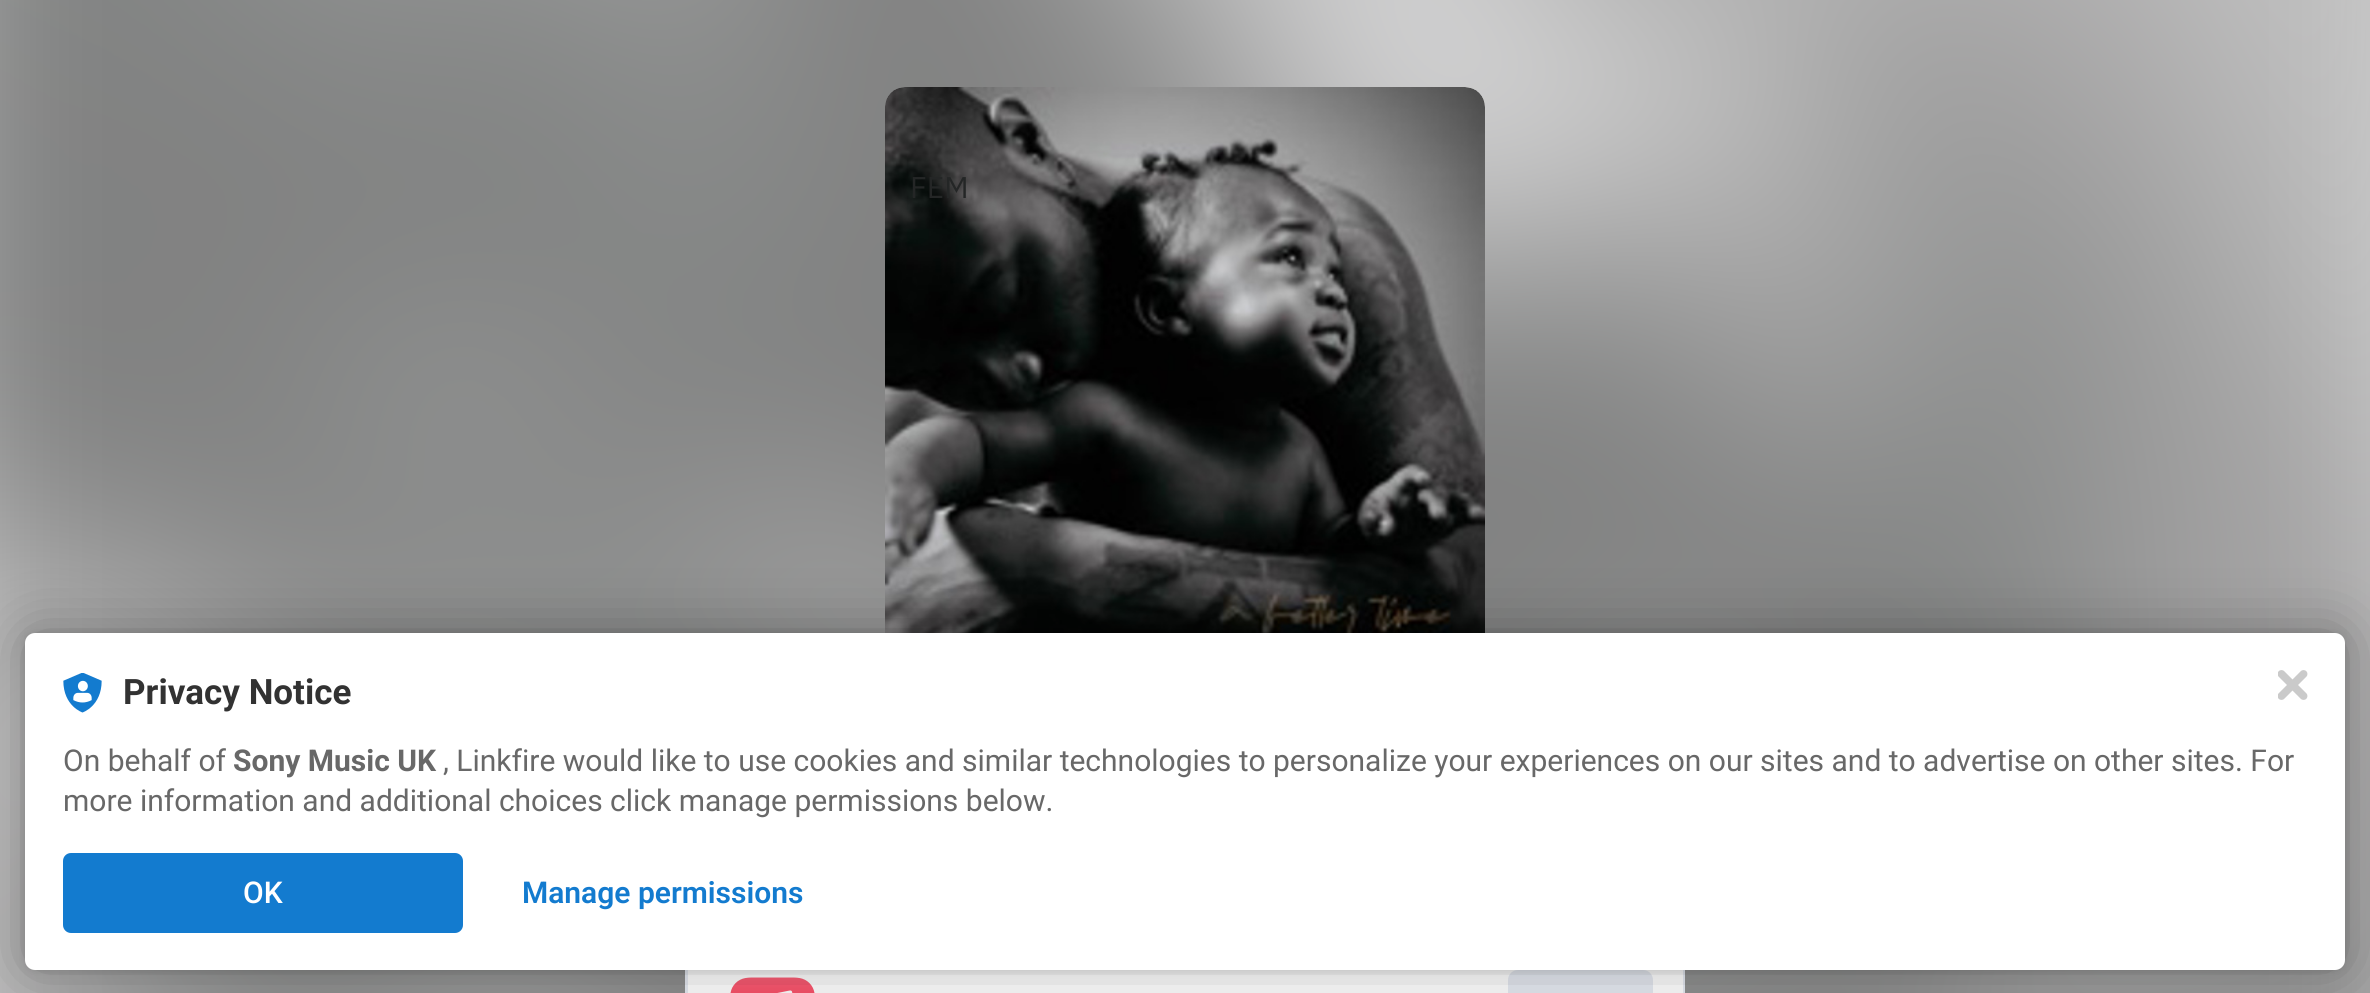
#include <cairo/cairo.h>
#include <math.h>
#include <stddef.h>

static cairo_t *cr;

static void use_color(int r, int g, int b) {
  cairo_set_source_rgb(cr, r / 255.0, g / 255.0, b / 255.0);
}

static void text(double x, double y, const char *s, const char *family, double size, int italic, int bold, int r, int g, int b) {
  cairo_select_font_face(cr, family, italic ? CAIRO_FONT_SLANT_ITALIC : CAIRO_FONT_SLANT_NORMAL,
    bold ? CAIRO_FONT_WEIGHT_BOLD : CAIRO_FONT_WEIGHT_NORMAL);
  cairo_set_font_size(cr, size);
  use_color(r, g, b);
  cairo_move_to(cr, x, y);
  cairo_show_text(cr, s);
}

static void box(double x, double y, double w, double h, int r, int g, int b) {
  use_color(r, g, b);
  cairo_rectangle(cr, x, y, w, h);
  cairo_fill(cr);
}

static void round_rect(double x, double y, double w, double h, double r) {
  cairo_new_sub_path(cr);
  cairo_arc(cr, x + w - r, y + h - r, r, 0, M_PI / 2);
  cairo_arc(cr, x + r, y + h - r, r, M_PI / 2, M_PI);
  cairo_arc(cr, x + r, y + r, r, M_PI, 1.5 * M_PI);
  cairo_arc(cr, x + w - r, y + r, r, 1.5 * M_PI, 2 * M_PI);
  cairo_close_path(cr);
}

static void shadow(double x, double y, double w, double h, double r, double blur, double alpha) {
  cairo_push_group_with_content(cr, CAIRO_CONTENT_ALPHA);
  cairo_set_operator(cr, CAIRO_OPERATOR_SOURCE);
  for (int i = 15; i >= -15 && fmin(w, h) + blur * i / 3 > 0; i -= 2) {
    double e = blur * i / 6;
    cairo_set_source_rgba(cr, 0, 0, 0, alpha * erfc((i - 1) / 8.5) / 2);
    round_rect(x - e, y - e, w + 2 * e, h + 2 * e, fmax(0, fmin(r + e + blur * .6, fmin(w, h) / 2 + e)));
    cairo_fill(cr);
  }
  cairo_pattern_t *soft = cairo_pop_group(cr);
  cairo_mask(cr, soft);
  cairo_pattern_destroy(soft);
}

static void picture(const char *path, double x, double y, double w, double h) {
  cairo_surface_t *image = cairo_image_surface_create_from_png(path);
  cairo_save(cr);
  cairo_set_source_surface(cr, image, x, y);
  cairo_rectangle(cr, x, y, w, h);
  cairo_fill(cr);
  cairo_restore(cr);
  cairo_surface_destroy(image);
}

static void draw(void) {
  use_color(255, 255, 255);
  cairo_paint(cr);
  picture("img_01.png", 0, 0, 2370, 993);
  picture("img_02.png", 885, 87, 600, 546);
  cairo_rectangle(cr, 686.5, 929.5, 997, 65);
  use_color(230, 234, 242);
  cairo_set_line_width(cr, 3);
  cairo_stroke(cr);
  box(688, 970, 995, 23, 255, 255, 255);
  picture("img_03.png", 730, 977, 85, 16);
  use_color(230, 234, 242);
  round_rect(1508, 970, 145, 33, 10);
  cairo_fill(cr);
  use_color(0, 0, 0);
  shadow(25, 633, 2320, 337, 10, 5, 0.12);
  shadow(25, 633, 2320, 337, 10, 30, 0.3);
  use_color(255, 255, 255);
  round_rect(25, 633, 2320, 337, 10);
  cairo_fill(cr);
  picture("img_04.png", 2278, 670, 30, 30);
  picture("img_05.png", 63, 673, 39, 40);
  use_color(19, 123, 207);
  round_rect(63, 853, 400, 80, 8);
  cairo_fill(cr);
  text(910, 198, "FEM", "IBM Plex Sans", 30, 0, 0, 36, 38, 38);
  text(123, 704, "Privacy Notice", "Roboto", 35, 0, 1, 50, 50, 50);
  text(63, 771, "On behalf of", "Roboto", 30, 0, 0, 104, 104, 104);
  text(233, 771, "Sony Music UK", "Roboto", 30, 0, 1, 104, 104, 104);
  text(443, 771, ", Linkfire would like to use cookies and similar technologies to personalize your experiences on our sites and to advertise on other sites. For", "Roboto", 30, 0, 0, 104, 104, 104);
  text(63, 811, "more information and additional choices click manage permissions below.", "Roboto", 30, 0, 0, 104, 104, 104);
  text(243, 903, "OK", "Roboto Medium", 30, 0, 0, 255, 255, 255);
  text(522, 903, "Manage permissions", "Roboto SemiBold", 30, 0, 0, 19, 123, 207);
}

int main(void) {
  cairo_surface_t *surface = cairo_image_surface_create(CAIRO_FORMAT_RGB24, 2370, 993);
  cr = cairo_create(surface);
  cairo_font_options_t *options = cairo_font_options_create();
  cairo_font_options_set_hint_metrics(options, CAIRO_HINT_METRICS_OFF);
  cairo_font_options_set_hint_style(options, CAIRO_HINT_STYLE_NONE);
  cairo_set_font_options(cr, options);
  cairo_set_miter_limit(cr, 4);
  draw();
  cairo_surface_write_to_png(surface, "out.png");
  cairo_font_options_destroy(options);
  cairo_destroy(cr);
  cairo_surface_destroy(surface);
  return 0;
}
